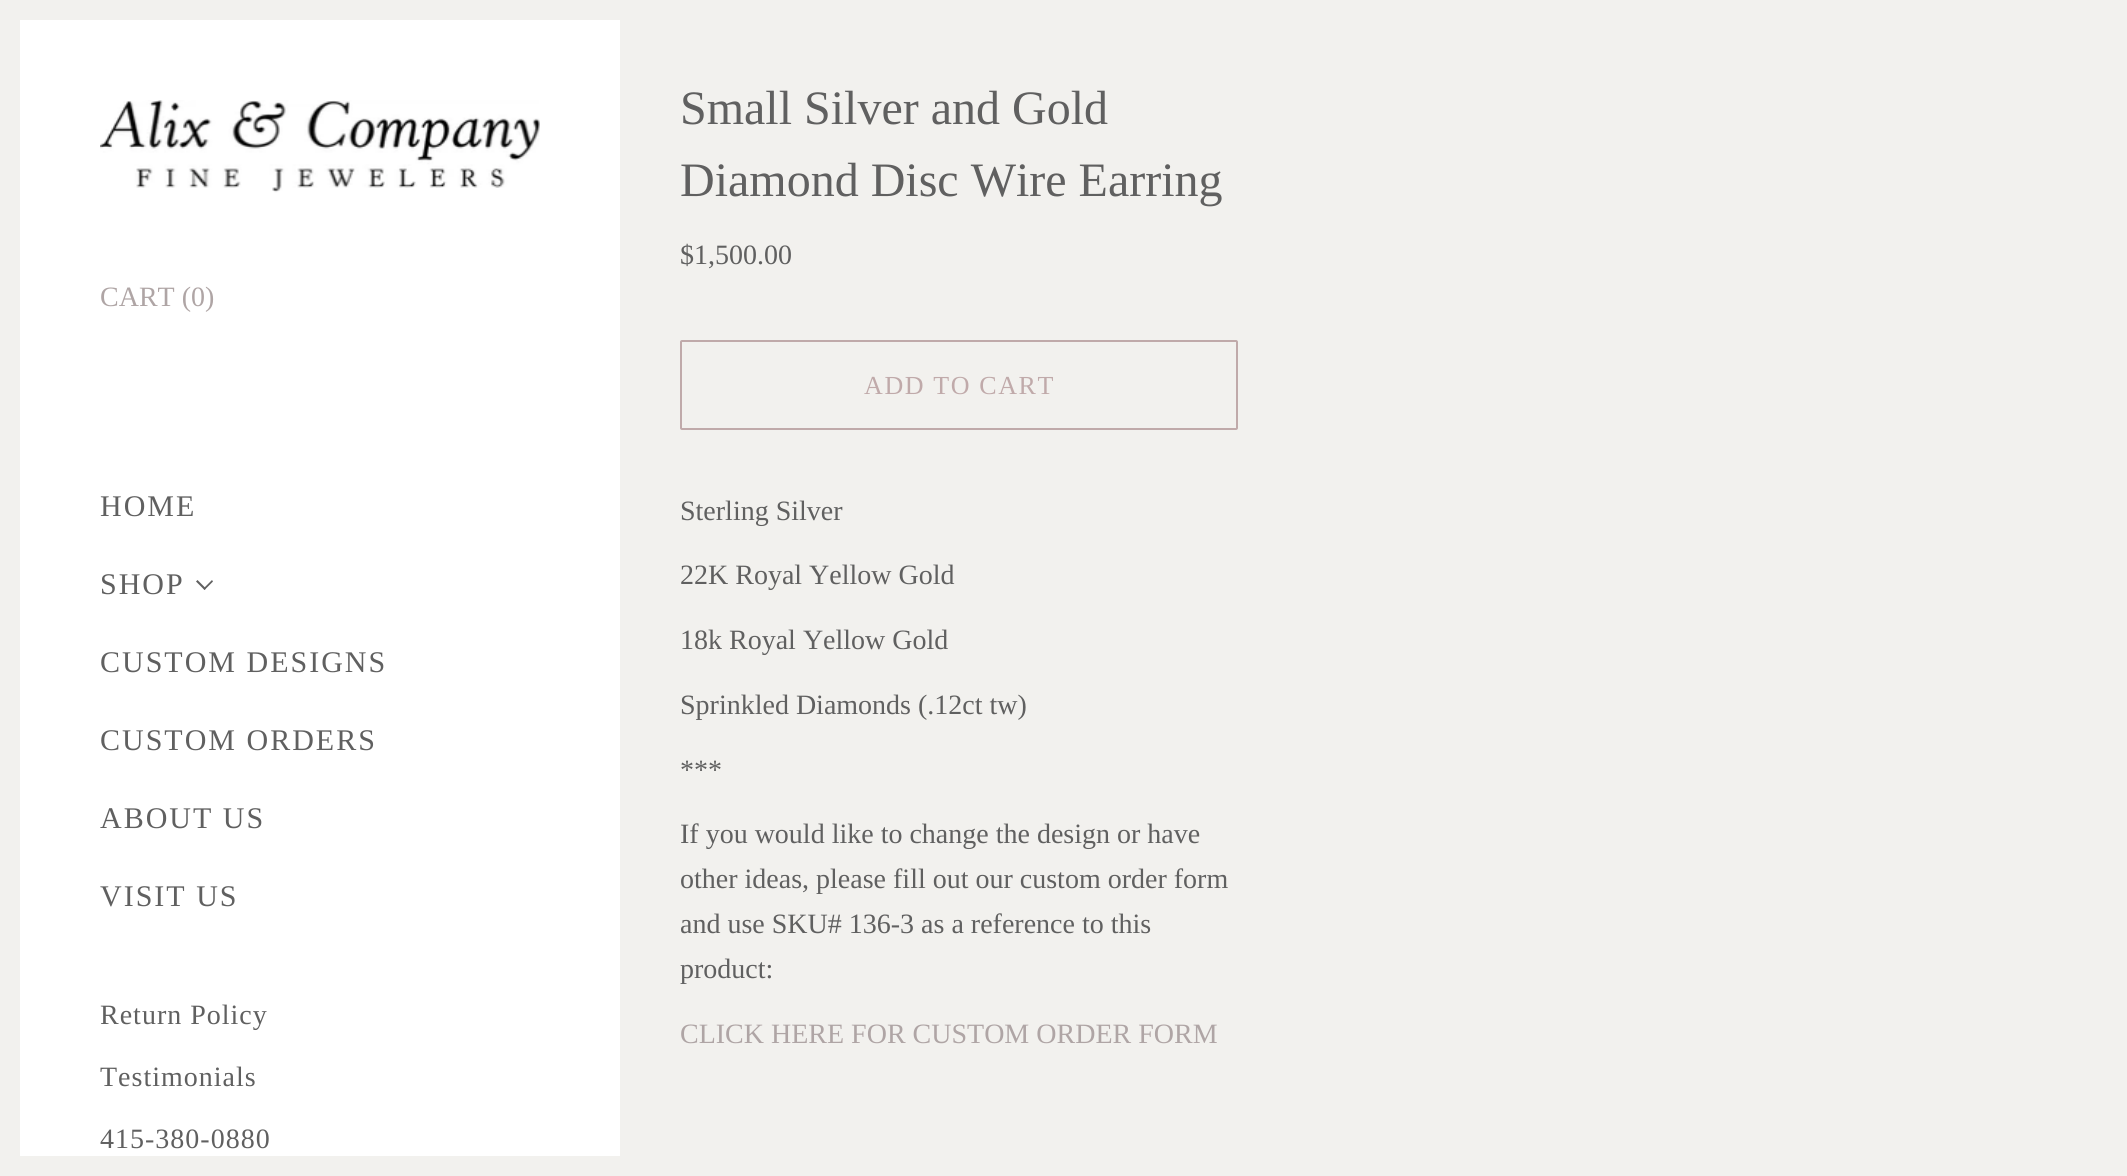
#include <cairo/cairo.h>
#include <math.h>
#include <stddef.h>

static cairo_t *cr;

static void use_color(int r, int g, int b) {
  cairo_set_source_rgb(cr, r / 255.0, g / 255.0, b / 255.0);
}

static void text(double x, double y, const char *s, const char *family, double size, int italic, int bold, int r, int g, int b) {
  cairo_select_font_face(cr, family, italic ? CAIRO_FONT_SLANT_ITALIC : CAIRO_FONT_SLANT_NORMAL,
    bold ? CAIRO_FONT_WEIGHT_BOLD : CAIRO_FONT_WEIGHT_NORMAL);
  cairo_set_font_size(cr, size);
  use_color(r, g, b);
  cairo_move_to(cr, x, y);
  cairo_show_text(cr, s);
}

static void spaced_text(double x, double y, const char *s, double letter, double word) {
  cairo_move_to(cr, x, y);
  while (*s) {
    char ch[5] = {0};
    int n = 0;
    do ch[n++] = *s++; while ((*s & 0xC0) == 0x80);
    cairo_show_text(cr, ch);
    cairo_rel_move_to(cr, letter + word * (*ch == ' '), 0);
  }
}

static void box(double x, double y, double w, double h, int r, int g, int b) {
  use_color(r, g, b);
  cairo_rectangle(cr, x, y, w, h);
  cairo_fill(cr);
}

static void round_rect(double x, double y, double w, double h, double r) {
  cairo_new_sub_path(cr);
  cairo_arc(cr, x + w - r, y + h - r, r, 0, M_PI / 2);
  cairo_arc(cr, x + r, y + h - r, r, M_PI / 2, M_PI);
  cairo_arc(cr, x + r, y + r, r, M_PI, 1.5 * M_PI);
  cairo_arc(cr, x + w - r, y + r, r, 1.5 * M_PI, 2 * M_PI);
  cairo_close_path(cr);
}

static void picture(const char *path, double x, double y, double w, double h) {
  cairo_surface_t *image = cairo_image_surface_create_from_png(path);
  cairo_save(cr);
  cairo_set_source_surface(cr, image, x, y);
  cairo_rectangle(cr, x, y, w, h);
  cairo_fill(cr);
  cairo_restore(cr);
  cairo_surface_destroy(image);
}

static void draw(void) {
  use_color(242, 241, 238);
  cairo_paint(cr);
  box(20, 20, 600, 1136, 255, 255, 255);
  picture("img_01.png", 100, 100, 440, 93);
  use_color(96, 96, 96);
  cairo_new_path(cr);
  cairo_move_to(cr, 213, 581.5);
  cairo_line_to(cr, 204.5, 590);
  cairo_line_to(cr, 203.5, 588.5);
  cairo_line_to(cr, 212, 580);
  cairo_close_path(cr);
  cairo_fill(cr);
  cairo_new_path(cr);
  cairo_move_to(cr, 206, 588.5);
  cairo_line_to(cr, 204.5, 590);
  cairo_line_to(cr, 196, 581.5);
  cairo_line_to(cr, 197.5, 580);
  cairo_close_path(cr);
  cairo_fill(cr);
  round_rect(681, 341, 556, 88, 1);
  use_color(192, 170, 170);
  cairo_stroke(cr);
  text(100, 306, "CART (0)", "Liberation Serif", 28, 0, 0, 175, 165, 165);
  cairo_set_font_size(cr, 30);
  use_color(96, 96, 96);
  spaced_text(100, 516, "HOME", 2, 0);
  spaced_text(100, 594, "SHOP", 2, 0);
  spaced_text(100, 672, "CUSTOM DESIGNS", 2, 0);
  spaced_text(100, 750, "CUSTOM ORDERS", 2, 0);
  spaced_text(100, 828, "ABOUT US", 2, 0);
  spaced_text(100, 906, "VISIT US", 2, 0);
  cairo_set_font_size(cr, 28);
  spaced_text(100, 1024, "Return Policy", 1, 0);
  spaced_text(100, 1086, "Testimonials", 1, 0);
  spaced_text(100, 1148, "415-380-0880", 1, 0);
  text(680, 124, "Small Silver and Gold", "Liberation Serif", 48, 0, 0, 96, 96, 96);
  text(680, 196, "Diamond Disc Wire Earring", "Liberation Serif", 48, 0, 0, 96, 96, 96);
  text(680, 264, "$1,500.00", "Liberation Serif", 28, 0, 0, 96, 96, 96);
  cairo_set_font_size(cr, 26);
  use_color(192, 170, 170);
  spaced_text(864, 394, "ADD TO CART", 1.6, 0);
  text(680, 520, "Sterling Silver", "Liberation Serif", 28, 0, 0, 96, 96, 96);
  text(680, 584, "22K Royal Yellow Gold", "Liberation Serif", 28, 0, 0, 96, 96, 96);
  text(680, 649, "18k Royal Yellow Gold", "Liberation Serif", 28, 0, 0, 96, 96, 96);
  text(680, 714, "Sprinkled Diamonds (.12ct tw)", "Liberation Serif", 28, 0, 0, 96, 96, 96);
  text(680, 779, "***", "Liberation Serif", 28, 0, 0, 96, 96, 96);
  text(680, 843, "If you would like to change the design or have", "Liberation Serif", 28, 0, 0, 96, 96, 96);
  text(680, 888, "other ideas, please fill out our custom order form", "Liberation Serif", 28, 0, 0, 96, 96, 96);
  text(680, 933, "and use SKU# 136-3 as a reference to this", "Liberation Serif", 28, 0, 0, 96, 96, 96);
  text(680, 978, "product:", "Liberation Serif", 28, 0, 0, 96, 96, 96);
  text(680, 1043, "CLICK HERE FOR CUSTOM ORDER FORM", "Liberation Serif", 28, 0, 0, 175, 165, 165);
}

int main(void) {
  cairo_surface_t *surface = cairo_image_surface_create(CAIRO_FORMAT_RGB24, 2127, 1176);
  cr = cairo_create(surface);
  cairo_font_options_t *options = cairo_font_options_create();
  cairo_font_options_set_hint_metrics(options, CAIRO_HINT_METRICS_OFF);
  cairo_font_options_set_hint_style(options, CAIRO_HINT_STYLE_NONE);
  cairo_set_font_options(cr, options);
  cairo_set_miter_limit(cr, 4);
  draw();
  cairo_surface_write_to_png(surface, "out.png");
  cairo_font_options_destroy(options);
  cairo_destroy(cr);
  cairo_surface_destroy(surface);
  return 0;
}
